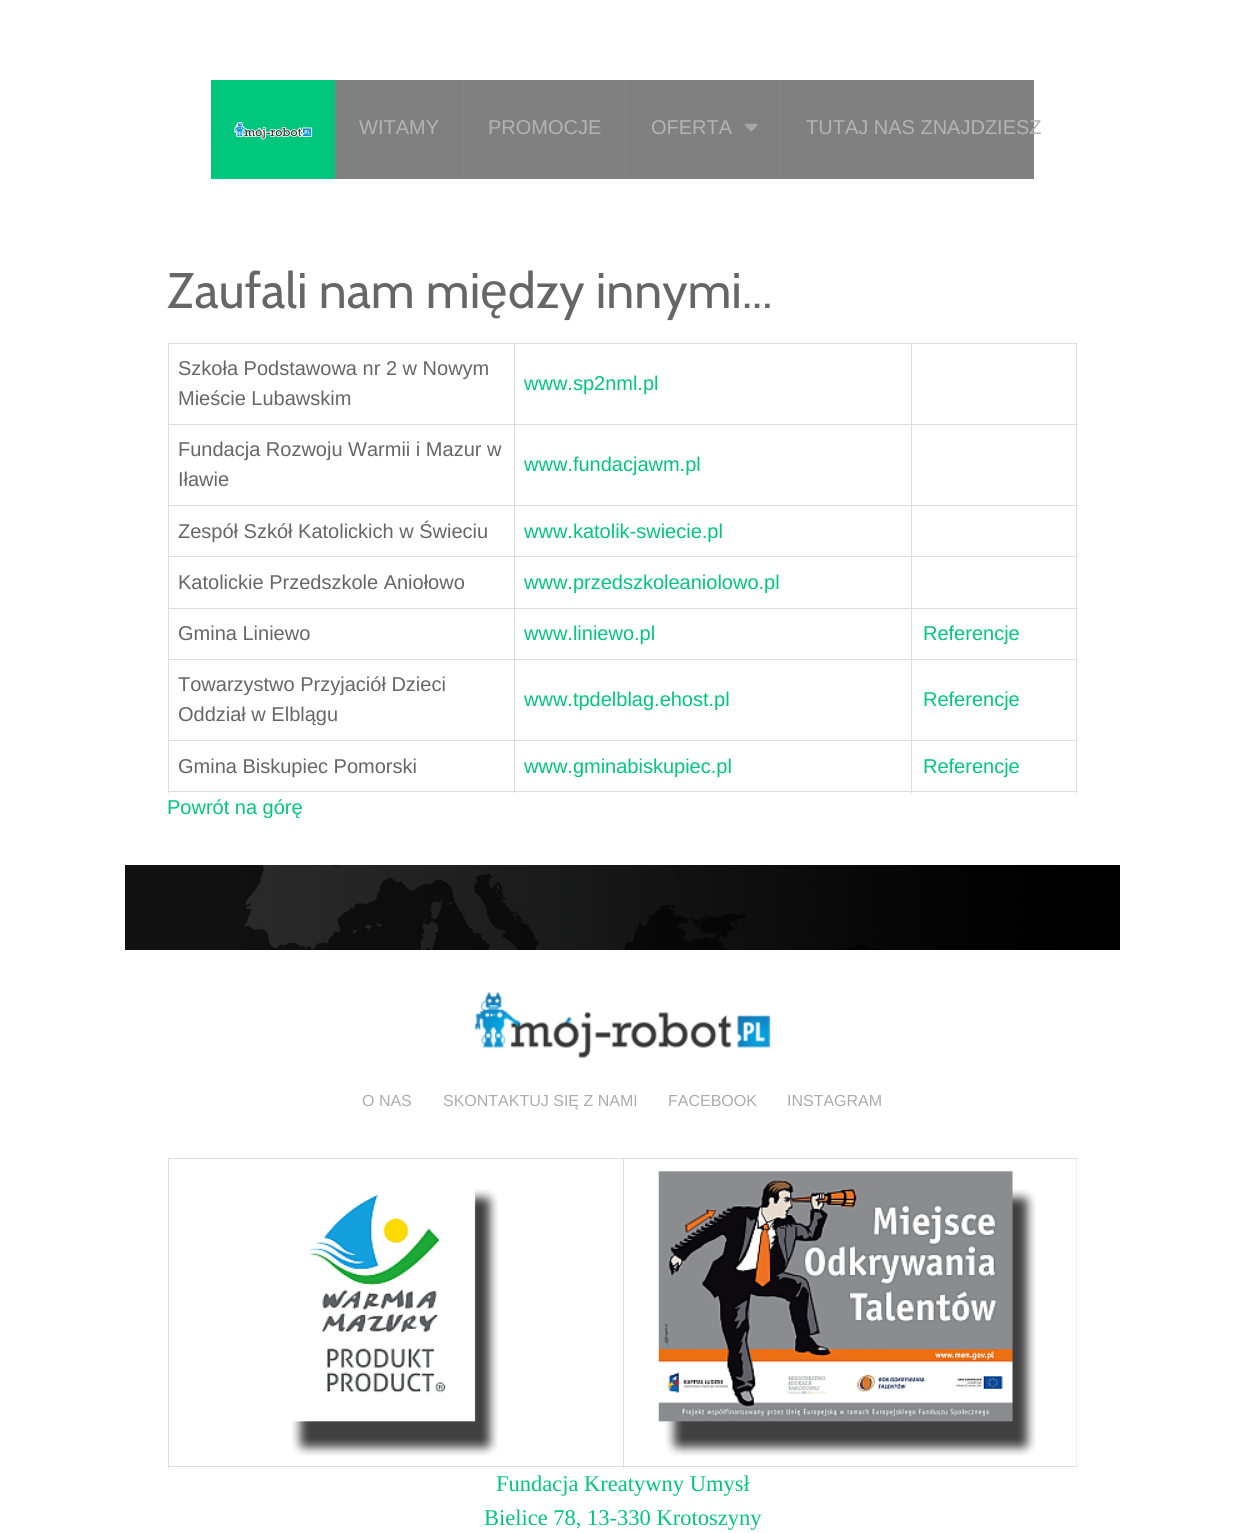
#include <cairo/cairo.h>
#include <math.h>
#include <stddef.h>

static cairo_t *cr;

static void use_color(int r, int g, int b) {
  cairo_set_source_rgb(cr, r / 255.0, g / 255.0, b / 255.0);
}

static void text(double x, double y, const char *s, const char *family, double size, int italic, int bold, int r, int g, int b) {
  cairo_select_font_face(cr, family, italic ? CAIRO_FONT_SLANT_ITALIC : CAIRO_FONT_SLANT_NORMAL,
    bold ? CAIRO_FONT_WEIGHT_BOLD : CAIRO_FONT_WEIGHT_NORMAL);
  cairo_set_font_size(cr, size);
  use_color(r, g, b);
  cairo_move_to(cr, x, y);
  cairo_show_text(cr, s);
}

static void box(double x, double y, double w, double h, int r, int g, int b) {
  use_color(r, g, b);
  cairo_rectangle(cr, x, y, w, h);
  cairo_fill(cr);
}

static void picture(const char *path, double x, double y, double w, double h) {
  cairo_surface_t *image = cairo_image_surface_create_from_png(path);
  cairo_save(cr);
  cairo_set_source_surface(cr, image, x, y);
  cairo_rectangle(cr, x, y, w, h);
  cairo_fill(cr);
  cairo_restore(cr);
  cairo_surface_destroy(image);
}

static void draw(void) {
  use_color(255, 255, 255);
  cairo_paint(cr);
  box(335, 80, 699, 99, 128, 128, 128);
  box(780, 80, 1, 99, 134, 134, 134);
  box(625, 80, 1, 99, 134, 134, 134);
  box(463, 80, 1, 99, 134, 134, 134);
  box(211, 80, 124, 99, 0, 198, 126);
  picture("img_01.png", 234, 122, 79, 18);
  picture("img_02.png", 745, 123, 13, 9);
  box(168, 343, 910, 1, 222, 222, 222);
  box(1076, 343, 1, 450, 222, 222, 222);
  box(168, 791, 910, 1, 222, 222, 222);
  box(168, 343, 1, 450, 222, 222, 222);
  box(911, 424, 167, 1, 222, 222, 222);
  box(911, 505, 167, 1, 222, 222, 222);
  box(911, 556, 167, 1, 222, 222, 222);
  box(911, 608, 167, 1, 222, 222, 222);
  box(911, 659, 167, 1, 222, 222, 222);
  box(911, 740, 167, 1, 222, 222, 222);
  box(911, 740, 1, 53, 222, 222, 222);
  box(514, 740, 399, 1, 222, 222, 222);
  box(911, 659, 1, 82, 222, 222, 222);
  box(514, 659, 399, 1, 222, 222, 222);
  box(911, 608, 1, 52, 222, 222, 222);
  box(514, 608, 399, 1, 222, 222, 222);
  box(911, 556, 1, 53, 222, 222, 222);
  box(514, 556, 399, 1, 222, 222, 222);
  box(911, 505, 1, 53, 222, 222, 222);
  box(514, 505, 399, 1, 222, 222, 222);
  box(911, 424, 1, 82, 222, 222, 222);
  box(514, 424, 399, 1, 222, 222, 222);
  box(514, 740, 1, 53, 222, 222, 222);
  box(168, 740, 347, 1, 222, 222, 222);
  box(514, 659, 1, 82, 222, 222, 222);
  box(168, 659, 347, 1, 222, 222, 222);
  box(514, 608, 1, 52, 222, 222, 222);
  box(168, 608, 347, 1, 222, 222, 222);
  box(514, 556, 1, 53, 222, 222, 222);
  box(168, 556, 347, 1, 222, 222, 222);
  box(514, 505, 1, 53, 222, 222, 222);
  box(168, 505, 347, 1, 222, 222, 222);
  box(514, 424, 1, 82, 222, 222, 222);
  box(168, 424, 347, 1, 222, 222, 222);
  box(514, 343, 1, 82, 222, 222, 222);
  box(911, 343, 1, 82, 222, 222, 222);
  box(125, 865, 119, 85, 17, 17, 17);
  picture("img_03.png", 244, 865, 876, 85);
  picture("img_04.png", 474, 992, 297, 66);
  box(1076, 1158, 1, 310, 238, 238, 238);
  box(623, 1158, 455, 1, 222, 222, 222);
  box(623, 1466, 455, 1, 222, 222, 222);
  box(623, 1158, 1, 310, 222, 222, 222);
  box(168, 1158, 456, 1, 222, 222, 222);
  box(168, 1466, 456, 1, 222, 222, 222);
  box(168, 1158, 1, 310, 222, 222, 222);
  picture("img_05.png", 291, 1189, 207, 267);
  picture("img_06.png", 658, 1171, 378, 285);
  text(359, 134, "WITAMY", "Arimo", 20, 0, 0, 179, 179, 179);
  text(488, 134, "PROMOCJE", "Arimo", 20, 0, 0, 179, 179, 179);
  text(651, 134, "OFERTA", "Arimo", 20, 0, 0, 179, 179, 179);
  text(806, 134, "TUTAJ NAS ZNAJDZIESZ", "Arimo", 20, 0, 0, 179, 179, 179);
  text(167, 308, "Zaufali nam mi", "Cabin", 50, 0, 0, 102, 102, 102);
  text(480, 308, "ę", "Liberation Sans", 50, 0, 0, 102, 102, 102);
  text(508, 308, "dzy innymi...", "Cabin", 50, 0, 0, 102, 102, 102);
  text(178, 375, "Szkoła Podstawowa nr 2 w Nowym", "Arimo", 20, 0, 0, 102, 102, 102);
  text(178, 405, "Mieście Lubawskim", "Arimo", 20, 0, 0, 102, 102, 102);
  text(524, 390, "www.sp2nml.pl", "Arimo", 20, 0, 0, 0, 198, 126);
  text(178, 456, "Fundacja Rozwoju Warmii i Mazur w", "Arimo", 20, 0, 0, 102, 102, 102);
  text(178, 486, "Iławie", "Arimo", 20, 0, 0, 102, 102, 102);
  text(524, 471, "www.fundacjawm.pl", "Arimo", 20, 0, 0, 0, 198, 126);
  text(178, 538, "Zespół Szkół Katolickich w Świeciu", "Arimo", 20, 0, 0, 102, 102, 102);
  text(524, 538, "www.katolik-swiecie.pl", "Arimo", 20, 0, 0, 0, 198, 126);
  text(178, 589, "Katolickie Przedszkole Aniołowo", "Arimo", 20, 0, 0, 102, 102, 102);
  text(524, 589, "www.przedszkoleaniolowo.pl", "Arimo", 20, 0, 0, 0, 198, 126);
  text(178, 640, "Gmina Liniewo", "Arimo", 20, 0, 0, 102, 102, 102);
  text(524, 640, "www.liniewo.pl", "Arimo", 20, 0, 0, 0, 198, 126);
  text(923, 640, "Referencje", "Arimo", 20, 0, 0, 0, 198, 126);
  text(178, 691, "Towarzystwo Przyjaciół Dzieci", "Arimo", 20, 0, 0, 102, 102, 102);
  text(178, 721, "Oddział w Elblągu", "Arimo", 20, 0, 0, 102, 102, 102);
  text(524, 706, "www.tpdelblag.ehost.pl", "Arimo", 20, 0, 0, 0, 198, 126);
  text(923, 706, "Referencje", "Arimo", 20, 0, 0, 0, 198, 126);
  text(178, 773, "Gmina Biskupiec Pomorski", "Arimo", 20, 0, 0, 102, 102, 102);
  text(524, 773, "www.gminabiskupiec.pl", "Arimo", 20, 0, 0, 0, 198, 126);
  text(923, 773, "Referencje", "Arimo", 20, 0, 0, 0, 198, 126);
  text(167, 814, "Powrót na górę", "Arimo", 20, 0, 0, 0, 198, 126);
  text(362, 1106, "O NAS", "Arimo", 16, 0, 0, 172, 172, 172);
  text(443, 1106, "SKONTAKTUJ SIĘ Z NAMI", "Arimo", 16, 0, 0, 172, 172, 172);
  text(668, 1106, "FACEBOOK", "Arimo", 16, 0, 0, 172, 172, 172);
  text(787, 1106, "INSTAGRAM", "Arimo", 16, 0, 0, 172, 172, 172);
  text(496, 1491, "Fundacja Kreatywny Umysł", "Liberation Serif", 22.5, 0, 0, 0, 198, 126);
  text(484, 1525, "Bielice 78, 13-330 Krotoszyny", "Liberation Serif", 22.5, 0, 0, 0, 198, 126);
}

int main(void) {
  cairo_surface_t *surface = cairo_image_surface_create(CAIRO_FORMAT_RGB24, 1244, 1533);
  cr = cairo_create(surface);
  cairo_font_options_t *options = cairo_font_options_create();
  cairo_font_options_set_hint_metrics(options, CAIRO_HINT_METRICS_OFF);
  cairo_font_options_set_hint_style(options, CAIRO_HINT_STYLE_NONE);
  cairo_set_font_options(cr, options);
  cairo_set_miter_limit(cr, 4);
  draw();
  cairo_surface_write_to_png(surface, "out.png");
  cairo_font_options_destroy(options);
  cairo_destroy(cr);
  cairo_surface_destroy(surface);
  return 0;
}
